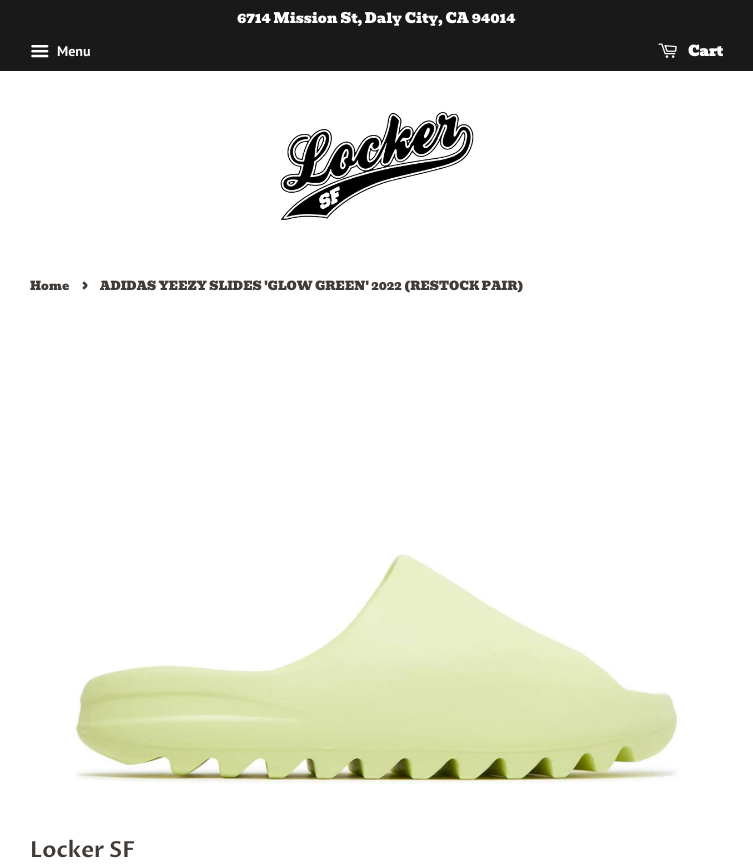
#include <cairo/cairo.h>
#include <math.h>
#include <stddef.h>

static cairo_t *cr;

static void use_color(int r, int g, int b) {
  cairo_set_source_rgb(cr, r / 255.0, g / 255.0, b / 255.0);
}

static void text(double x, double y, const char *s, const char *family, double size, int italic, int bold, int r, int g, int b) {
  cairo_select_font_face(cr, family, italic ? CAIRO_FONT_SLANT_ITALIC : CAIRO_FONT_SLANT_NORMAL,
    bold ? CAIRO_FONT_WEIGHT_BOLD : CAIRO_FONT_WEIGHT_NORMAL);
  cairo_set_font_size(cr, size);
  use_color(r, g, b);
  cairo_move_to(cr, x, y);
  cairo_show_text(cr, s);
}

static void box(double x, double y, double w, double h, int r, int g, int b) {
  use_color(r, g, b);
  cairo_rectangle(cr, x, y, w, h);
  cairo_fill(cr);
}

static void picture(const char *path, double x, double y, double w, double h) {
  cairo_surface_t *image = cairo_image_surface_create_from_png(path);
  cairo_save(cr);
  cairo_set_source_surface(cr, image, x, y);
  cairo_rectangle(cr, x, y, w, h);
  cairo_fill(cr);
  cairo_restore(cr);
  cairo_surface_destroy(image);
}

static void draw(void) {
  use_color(255, 255, 255);
  cairo_paint(cr);
  box(0, 0, 753, 71, 25, 25, 25);
  picture("img_01.png", 31, 45, 18, 13);
  picture("img_02.png", 658, 43, 19, 15);
  picture("img_03.png", 280, 111, 194, 109);
  picture("img_04.png", 75, 553, 604, 232);
  text(237, 23, "6714 Mission St, Daly City, CA 94014", "Bevan", 14, 0, 0, 255, 255, 255);
  text(57, 56, "Menu", "PT Sans", 14, 0, 1, 255, 255, 255);
  text(688, 56, "Cart", "Bevan", 14, 0, 1, 255, 255, 255);
  text(30, 290, "Home", "Bevan", 12, 0, 0, 64, 59, 55);
  text(82, 290, "›", "Bevan", 17, 0, 0, 64, 59, 55);
  text(100, 290, "ADIDAS YEEZY SLIDES 'GLOW GREEN' 2022 (RESTOCK PAIR)", "Bevan", 12, 0, 0, 64, 59, 55);
  text(30, 857, "Locker SF", "Proza Libre SemiBold", 22, 0, 0, 64, 59, 55);
}

int main(void) {
  cairo_surface_t *surface = cairo_image_surface_create(CAIRO_FORMAT_RGB24, 753, 867);
  cr = cairo_create(surface);
  cairo_font_options_t *options = cairo_font_options_create();
  cairo_font_options_set_hint_metrics(options, CAIRO_HINT_METRICS_OFF);
  cairo_font_options_set_hint_style(options, CAIRO_HINT_STYLE_NONE);
  cairo_set_font_options(cr, options);
  cairo_set_miter_limit(cr, 4);
  draw();
  cairo_surface_write_to_png(surface, "out.png");
  cairo_font_options_destroy(options);
  cairo_destroy(cr);
  cairo_surface_destroy(surface);
  return 0;
}
